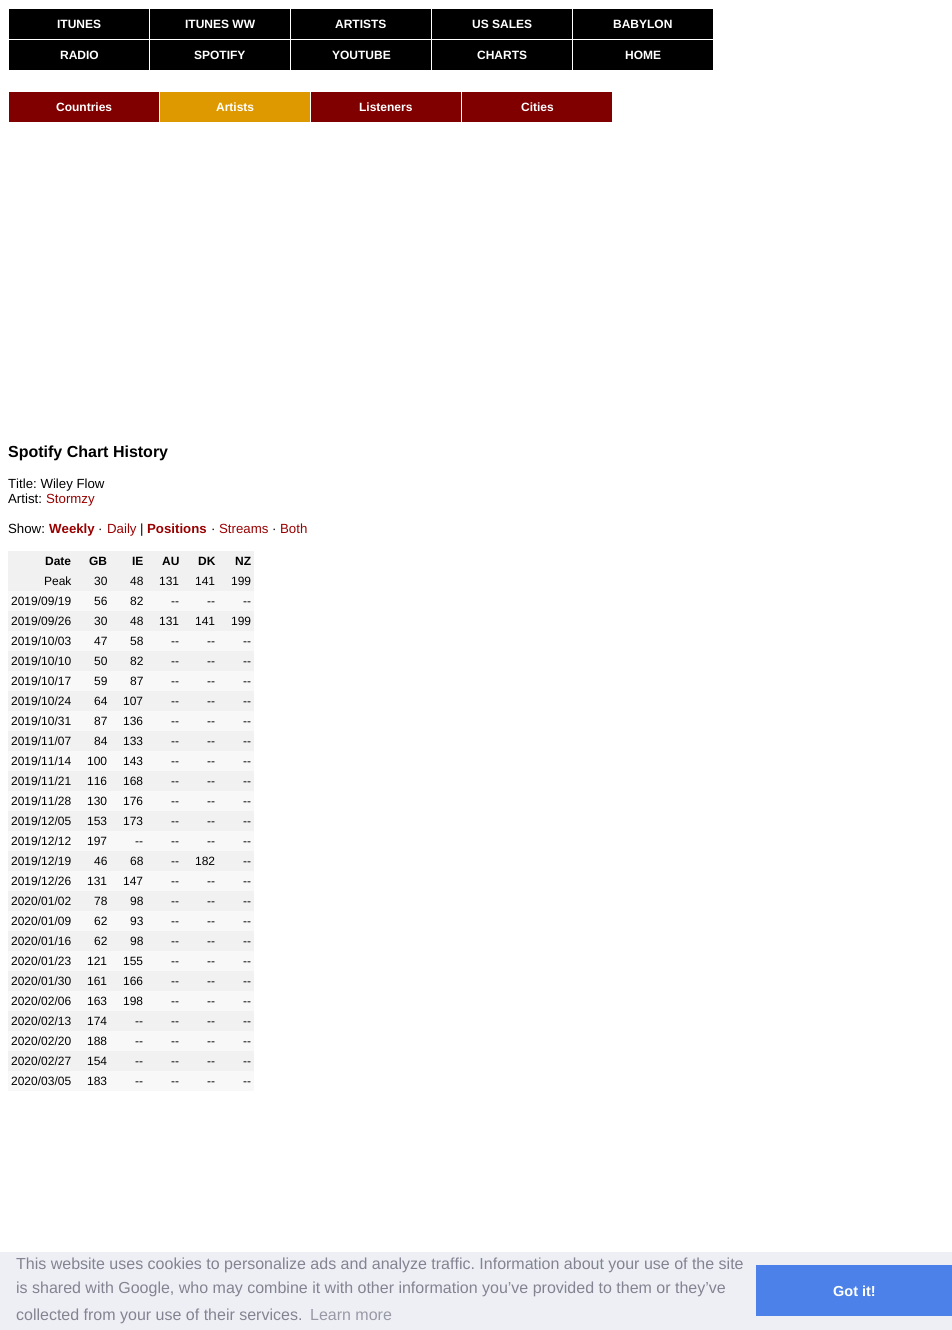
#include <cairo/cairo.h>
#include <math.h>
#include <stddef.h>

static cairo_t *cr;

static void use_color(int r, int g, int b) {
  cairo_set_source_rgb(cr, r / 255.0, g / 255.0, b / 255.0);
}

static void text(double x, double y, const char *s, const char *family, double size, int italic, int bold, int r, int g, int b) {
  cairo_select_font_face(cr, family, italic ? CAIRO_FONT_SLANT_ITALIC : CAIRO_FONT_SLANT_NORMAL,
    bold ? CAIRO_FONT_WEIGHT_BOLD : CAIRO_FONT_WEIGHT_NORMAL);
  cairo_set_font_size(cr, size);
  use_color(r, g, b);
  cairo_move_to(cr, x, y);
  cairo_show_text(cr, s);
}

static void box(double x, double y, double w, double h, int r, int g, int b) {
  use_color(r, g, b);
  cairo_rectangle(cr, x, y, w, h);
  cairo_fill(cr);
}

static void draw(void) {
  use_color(255, 255, 255);
  cairo_paint(cr);
  box(9, 9, 140, 30, 0, 0, 0);
  box(150, 9, 140, 30, 0, 0, 0);
  box(291, 9, 140, 30, 0, 0, 0);
  box(432, 9, 140, 30, 0, 0, 0);
  box(573, 9, 140, 30, 0, 0, 0);
  box(9, 40, 140, 30, 0, 0, 0);
  box(150, 40, 140, 30, 0, 0, 0);
  box(291, 40, 140, 30, 0, 0, 0);
  box(432, 40, 140, 30, 0, 0, 0);
  box(573, 40, 140, 30, 0, 0, 0);
  box(9, 92, 150, 30, 128, 0, 0);
  box(160, 92, 150, 30, 222, 152, 0);
  box(311, 92, 150, 30, 128, 0, 0);
  box(462, 92, 150, 30, 128, 0, 0);
  box(8, 551, 246, 40, 241, 241, 241);
  box(8, 591, 246, 20, 248, 248, 248);
  box(8, 611, 246, 20, 241, 241, 241);
  box(8, 631, 246, 20, 248, 248, 248);
  box(8, 651, 246, 20, 241, 241, 241);
  box(8, 671, 246, 20, 248, 248, 248);
  box(8, 691, 246, 20, 241, 241, 241);
  box(8, 711, 246, 20, 248, 248, 248);
  box(8, 731, 246, 20, 241, 241, 241);
  box(8, 751, 246, 20, 248, 248, 248);
  box(8, 771, 246, 20, 241, 241, 241);
  box(8, 791, 246, 20, 248, 248, 248);
  box(8, 811, 246, 20, 241, 241, 241);
  box(8, 831, 246, 20, 248, 248, 248);
  box(8, 851, 246, 20, 241, 241, 241);
  box(8, 871, 246, 20, 248, 248, 248);
  box(8, 891, 246, 20, 241, 241, 241);
  box(8, 911, 246, 20, 248, 248, 248);
  box(8, 931, 246, 20, 241, 241, 241);
  box(8, 951, 246, 20, 248, 248, 248);
  box(8, 971, 246, 20, 241, 241, 241);
  box(8, 991, 246, 20, 248, 248, 248);
  box(8, 1011, 246, 20, 241, 241, 241);
  box(8, 1031, 246, 20, 248, 248, 248);
  box(8, 1051, 246, 20, 241, 241, 241);
  box(8, 1071, 246, 20, 248, 248, 248);
  box(0, 1252, 952, 78, 237, 239, 245);
  box(756, 1265, 196, 51, 75, 129, 232);
  text(57, 28, "ITUNES", "Liberation Sans", 12, 0, 1, 255, 255, 255);
  text(185, 28, "ITUNES WW", "Liberation Sans", 12, 0, 1, 255, 255, 255);
  text(335, 28, "ARTISTS", "Liberation Sans", 12, 0, 1, 255, 255, 255);
  text(472, 28, "US SALES", "Liberation Sans", 12, 0, 1, 255, 255, 255);
  text(613, 28, "BABYLON", "Liberation Sans", 12, 0, 1, 255, 255, 255);
  text(60, 59, "RADIO", "Liberation Sans", 12, 0, 1, 255, 255, 255);
  text(194, 59, "SPOTIFY", "Liberation Sans", 12, 0, 1, 255, 255, 255);
  text(332, 59, "YOUTUBE", "Liberation Sans", 12, 0, 1, 255, 255, 255);
  text(477, 59, "CHARTS", "Liberation Sans", 12, 0, 1, 255, 255, 255);
  text(625, 59, "HOME", "Liberation Sans", 12, 0, 1, 255, 255, 255);
  text(56, 111, "Countries", "Liberation Sans", 12, 0, 1, 255, 255, 255);
  text(216, 111, "Artists", "Liberation Sans", 12, 0, 1, 255, 255, 255);
  text(359, 111, "Listeners", "Liberation Sans", 12, 0, 1, 255, 255, 255);
  text(521, 111, "Cities", "Liberation Sans", 12, 0, 1, 255, 255, 255);
  text(8, 457, "Spotify Chart History", "Liberation Sans", 16, 0, 1, 0, 0, 0);
  text(8, 488, "Title: Wiley Flow", "Liberation Sans", 13.25, 0, 0, 0, 0, 0);
  text(8, 503, "Artist:", "Liberation Sans", 13.25, 0, 0, 0, 0, 0);
  text(46, 503, "Stormzy", "Liberation Sans", 13.25, 0, 0, 153, 0, 0);
  text(8, 533, "Show:", "Liberation Sans", 13.25, 0, 0, 0, 0, 0);
  text(49, 533, "Weekly", "Liberation Sans", 13.25, 0, 1, 153, 0, 0);
  text(98, 533, "·", "Liberation Sans", 13.25, 0, 0, 0, 0, 0);
  text(107, 533, "Daily", "Liberation Sans", 13.25, 0, 0, 153, 0, 0);
  text(140, 533, "|", "Liberation Sans", 13.25, 0, 0, 0, 0, 0);
  text(147, 533, "Positions", "Liberation Sans", 13.25, 0, 1, 153, 0, 0);
  text(211, 533, "·", "Liberation Sans", 13.25, 0, 0, 0, 0, 0);
  text(219, 533, "Streams", "Liberation Sans", 13.25, 0, 0, 153, 0, 0);
  text(272, 533, "·", "Liberation Sans", 13.25, 0, 0, 0, 0, 0);
  text(280, 533, "Both", "Liberation Sans", 13.25, 0, 0, 153, 0, 0);
  text(45, 565, "Date", "Liberation Sans", 12, 0, 1, 0, 0, 0);
  text(89, 565, "GB", "Liberation Sans", 12, 0, 1, 0, 0, 0);
  text(132, 565, "IE", "Liberation Sans", 12, 0, 1, 0, 0, 0);
  text(162, 565, "AU", "Liberation Sans", 12, 0, 1, 0, 0, 0);
  text(198, 565, "DK", "Liberation Sans", 12, 0, 1, 0, 0, 0);
  text(235, 565, "NZ", "Liberation Sans", 12, 0, 1, 0, 0, 0);
  text(44, 585, "Peak", "Liberation Sans", 12, 0, 0, 0, 0, 0);
  text(94, 585, "30", "Liberation Sans", 12, 0, 0, 0, 0, 0);
  text(130, 585, "48", "Liberation Sans", 12, 0, 0, 0, 0, 0);
  text(159, 585, "131", "Liberation Sans", 12, 0, 0, 0, 0, 0);
  text(195, 585, "141", "Liberation Sans", 12, 0, 0, 0, 0, 0);
  text(231, 585, "199", "Liberation Sans", 12, 0, 0, 0, 0, 0);
  text(11, 605, "2019/09/19", "Liberation Sans", 12, 0, 0, 0, 0, 0);
  text(94, 605, "56", "Liberation Sans", 12, 0, 0, 0, 0, 0);
  text(130, 605, "82", "Liberation Sans", 12, 0, 0, 0, 0, 0);
  text(171, 605, "--", "Liberation Sans", 12, 0, 0, 0, 0, 0);
  text(207, 605, "--", "Liberation Sans", 12, 0, 0, 0, 0, 0);
  text(243, 605, "--", "Liberation Sans", 12, 0, 0, 0, 0, 0);
  text(11, 625, "2019/09/26", "Liberation Sans", 12, 0, 0, 0, 0, 0);
  text(94, 625, "30", "Liberation Sans", 12, 0, 0, 0, 0, 0);
  text(130, 625, "48", "Liberation Sans", 12, 0, 0, 0, 0, 0);
  text(159, 625, "131", "Liberation Sans", 12, 0, 0, 0, 0, 0);
  text(195, 625, "141", "Liberation Sans", 12, 0, 0, 0, 0, 0);
  text(231, 625, "199", "Liberation Sans", 12, 0, 0, 0, 0, 0);
  text(11, 645, "2019/10/03", "Liberation Sans", 12, 0, 0, 0, 0, 0);
  text(94, 645, "47", "Liberation Sans", 12, 0, 0, 0, 0, 0);
  text(130, 645, "58", "Liberation Sans", 12, 0, 0, 0, 0, 0);
  text(171, 645, "--", "Liberation Sans", 12, 0, 0, 0, 0, 0);
  text(207, 645, "--", "Liberation Sans", 12, 0, 0, 0, 0, 0);
  text(243, 645, "--", "Liberation Sans", 12, 0, 0, 0, 0, 0);
  text(11, 665, "2019/10/10", "Liberation Sans", 12, 0, 0, 0, 0, 0);
  text(94, 665, "50", "Liberation Sans", 12, 0, 0, 0, 0, 0);
  text(130, 665, "82", "Liberation Sans", 12, 0, 0, 0, 0, 0);
  text(171, 665, "--", "Liberation Sans", 12, 0, 0, 0, 0, 0);
  text(207, 665, "--", "Liberation Sans", 12, 0, 0, 0, 0, 0);
  text(243, 665, "--", "Liberation Sans", 12, 0, 0, 0, 0, 0);
  text(11, 685, "2019/10/17", "Liberation Sans", 12, 0, 0, 0, 0, 0);
  text(94, 685, "59", "Liberation Sans", 12, 0, 0, 0, 0, 0);
  text(130, 685, "87", "Liberation Sans", 12, 0, 0, 0, 0, 0);
  text(171, 685, "--", "Liberation Sans", 12, 0, 0, 0, 0, 0);
  text(207, 685, "--", "Liberation Sans", 12, 0, 0, 0, 0, 0);
  text(243, 685, "--", "Liberation Sans", 12, 0, 0, 0, 0, 0);
  text(11, 705, "2019/10/24", "Liberation Sans", 12, 0, 0, 0, 0, 0);
  text(94, 705, "64", "Liberation Sans", 12, 0, 0, 0, 0, 0);
  text(123, 705, "107", "Liberation Sans", 12, 0, 0, 0, 0, 0);
  text(171, 705, "--", "Liberation Sans", 12, 0, 0, 0, 0, 0);
  text(207, 705, "--", "Liberation Sans", 12, 0, 0, 0, 0, 0);
  text(243, 705, "--", "Liberation Sans", 12, 0, 0, 0, 0, 0);
  text(11, 725, "2019/10/31", "Liberation Sans", 12, 0, 0, 0, 0, 0);
  text(94, 725, "87", "Liberation Sans", 12, 0, 0, 0, 0, 0);
  text(123, 725, "136", "Liberation Sans", 12, 0, 0, 0, 0, 0);
  text(171, 725, "--", "Liberation Sans", 12, 0, 0, 0, 0, 0);
  text(207, 725, "--", "Liberation Sans", 12, 0, 0, 0, 0, 0);
  text(243, 725, "--", "Liberation Sans", 12, 0, 0, 0, 0, 0);
  text(11, 745, "2019/11/07", "Liberation Sans", 12, 0, 0, 0, 0, 0);
  text(94, 745, "84", "Liberation Sans", 12, 0, 0, 0, 0, 0);
  text(123, 745, "133", "Liberation Sans", 12, 0, 0, 0, 0, 0);
  text(171, 745, "--", "Liberation Sans", 12, 0, 0, 0, 0, 0);
  text(207, 745, "--", "Liberation Sans", 12, 0, 0, 0, 0, 0);
  text(243, 745, "--", "Liberation Sans", 12, 0, 0, 0, 0, 0);
  text(11, 765, "2019/11/14", "Liberation Sans", 12, 0, 0, 0, 0, 0);
  text(87, 765, "100", "Liberation Sans", 12, 0, 0, 0, 0, 0);
  text(123, 765, "143", "Liberation Sans", 12, 0, 0, 0, 0, 0);
  text(171, 765, "--", "Liberation Sans", 12, 0, 0, 0, 0, 0);
  text(207, 765, "--", "Liberation Sans", 12, 0, 0, 0, 0, 0);
  text(243, 765, "--", "Liberation Sans", 12, 0, 0, 0, 0, 0);
  text(11, 785, "2019/11/21", "Liberation Sans", 12, 0, 0, 0, 0, 0);
  text(87, 785, "116", "Liberation Sans", 12, 0, 0, 0, 0, 0);
  text(123, 785, "168", "Liberation Sans", 12, 0, 0, 0, 0, 0);
  text(171, 785, "--", "Liberation Sans", 12, 0, 0, 0, 0, 0);
  text(207, 785, "--", "Liberation Sans", 12, 0, 0, 0, 0, 0);
  text(243, 785, "--", "Liberation Sans", 12, 0, 0, 0, 0, 0);
  text(11, 805, "2019/11/28", "Liberation Sans", 12, 0, 0, 0, 0, 0);
  text(87, 805, "130", "Liberation Sans", 12, 0, 0, 0, 0, 0);
  text(123, 805, "176", "Liberation Sans", 12, 0, 0, 0, 0, 0);
  text(171, 805, "--", "Liberation Sans", 12, 0, 0, 0, 0, 0);
  text(207, 805, "--", "Liberation Sans", 12, 0, 0, 0, 0, 0);
  text(243, 805, "--", "Liberation Sans", 12, 0, 0, 0, 0, 0);
  text(11, 825, "2019/12/05", "Liberation Sans", 12, 0, 0, 0, 0, 0);
  text(87, 825, "153", "Liberation Sans", 12, 0, 0, 0, 0, 0);
  text(123, 825, "173", "Liberation Sans", 12, 0, 0, 0, 0, 0);
  text(171, 825, "--", "Liberation Sans", 12, 0, 0, 0, 0, 0);
  text(207, 825, "--", "Liberation Sans", 12, 0, 0, 0, 0, 0);
  text(243, 825, "--", "Liberation Sans", 12, 0, 0, 0, 0, 0);
  text(11, 845, "2019/12/12", "Liberation Sans", 12, 0, 0, 0, 0, 0);
  text(87, 845, "197", "Liberation Sans", 12, 0, 0, 0, 0, 0);
  text(135, 845, "--", "Liberation Sans", 12, 0, 0, 0, 0, 0);
  text(171, 845, "--", "Liberation Sans", 12, 0, 0, 0, 0, 0);
  text(207, 845, "--", "Liberation Sans", 12, 0, 0, 0, 0, 0);
  text(243, 845, "--", "Liberation Sans", 12, 0, 0, 0, 0, 0);
  text(11, 865, "2019/12/19", "Liberation Sans", 12, 0, 0, 0, 0, 0);
  text(94, 865, "46", "Liberation Sans", 12, 0, 0, 0, 0, 0);
  text(130, 865, "68", "Liberation Sans", 12, 0, 0, 0, 0, 0);
  text(171, 865, "--", "Liberation Sans", 12, 0, 0, 0, 0, 0);
  text(195, 865, "182", "Liberation Sans", 12, 0, 0, 0, 0, 0);
  text(243, 865, "--", "Liberation Sans", 12, 0, 0, 0, 0, 0);
  text(11, 885, "2019/12/26", "Liberation Sans", 12, 0, 0, 0, 0, 0);
  text(87, 885, "131", "Liberation Sans", 12, 0, 0, 0, 0, 0);
  text(123, 885, "147", "Liberation Sans", 12, 0, 0, 0, 0, 0);
  text(171, 885, "--", "Liberation Sans", 12, 0, 0, 0, 0, 0);
  text(207, 885, "--", "Liberation Sans", 12, 0, 0, 0, 0, 0);
  text(243, 885, "--", "Liberation Sans", 12, 0, 0, 0, 0, 0);
  text(11, 905, "2020/01/02", "Liberation Sans", 12, 0, 0, 0, 0, 0);
  text(94, 905, "78", "Liberation Sans", 12, 0, 0, 0, 0, 0);
  text(130, 905, "98", "Liberation Sans", 12, 0, 0, 0, 0, 0);
  text(171, 905, "--", "Liberation Sans", 12, 0, 0, 0, 0, 0);
  text(207, 905, "--", "Liberation Sans", 12, 0, 0, 0, 0, 0);
  text(243, 905, "--", "Liberation Sans", 12, 0, 0, 0, 0, 0);
  text(11, 925, "2020/01/09", "Liberation Sans", 12, 0, 0, 0, 0, 0);
  text(94, 925, "62", "Liberation Sans", 12, 0, 0, 0, 0, 0);
  text(130, 925, "93", "Liberation Sans", 12, 0, 0, 0, 0, 0);
  text(171, 925, "--", "Liberation Sans", 12, 0, 0, 0, 0, 0);
  text(207, 925, "--", "Liberation Sans", 12, 0, 0, 0, 0, 0);
  text(243, 925, "--", "Liberation Sans", 12, 0, 0, 0, 0, 0);
  text(11, 945, "2020/01/16", "Liberation Sans", 12, 0, 0, 0, 0, 0);
  text(94, 945, "62", "Liberation Sans", 12, 0, 0, 0, 0, 0);
  text(130, 945, "98", "Liberation Sans", 12, 0, 0, 0, 0, 0);
  text(171, 945, "--", "Liberation Sans", 12, 0, 0, 0, 0, 0);
  text(207, 945, "--", "Liberation Sans", 12, 0, 0, 0, 0, 0);
  text(243, 945, "--", "Liberation Sans", 12, 0, 0, 0, 0, 0);
  text(11, 965, "2020/01/23", "Liberation Sans", 12, 0, 0, 0, 0, 0);
  text(87, 965, "121", "Liberation Sans", 12, 0, 0, 0, 0, 0);
  text(123, 965, "155", "Liberation Sans", 12, 0, 0, 0, 0, 0);
  text(171, 965, "--", "Liberation Sans", 12, 0, 0, 0, 0, 0);
  text(207, 965, "--", "Liberation Sans", 12, 0, 0, 0, 0, 0);
  text(243, 965, "--", "Liberation Sans", 12, 0, 0, 0, 0, 0);
  text(11, 985, "2020/01/30", "Liberation Sans", 12, 0, 0, 0, 0, 0);
  text(87, 985, "161", "Liberation Sans", 12, 0, 0, 0, 0, 0);
  text(123, 985, "166", "Liberation Sans", 12, 0, 0, 0, 0, 0);
  text(171, 985, "--", "Liberation Sans", 12, 0, 0, 0, 0, 0);
  text(207, 985, "--", "Liberation Sans", 12, 0, 0, 0, 0, 0);
  text(243, 985, "--", "Liberation Sans", 12, 0, 0, 0, 0, 0);
  text(11, 1005, "2020/02/06", "Liberation Sans", 12, 0, 0, 0, 0, 0);
  text(87, 1005, "163", "Liberation Sans", 12, 0, 0, 0, 0, 0);
  text(123, 1005, "198", "Liberation Sans", 12, 0, 0, 0, 0, 0);
  text(171, 1005, "--", "Liberation Sans", 12, 0, 0, 0, 0, 0);
  text(207, 1005, "--", "Liberation Sans", 12, 0, 0, 0, 0, 0);
  text(243, 1005, "--", "Liberation Sans", 12, 0, 0, 0, 0, 0);
  text(11, 1025, "2020/02/13", "Liberation Sans", 12, 0, 0, 0, 0, 0);
  text(87, 1025, "174", "Liberation Sans", 12, 0, 0, 0, 0, 0);
  text(135, 1025, "--", "Liberation Sans", 12, 0, 0, 0, 0, 0);
  text(171, 1025, "--", "Liberation Sans", 12, 0, 0, 0, 0, 0);
  text(207, 1025, "--", "Liberation Sans", 12, 0, 0, 0, 0, 0);
  text(243, 1025, "--", "Liberation Sans", 12, 0, 0, 0, 0, 0);
  text(11, 1045, "2020/02/20", "Liberation Sans", 12, 0, 0, 0, 0, 0);
  text(87, 1045, "188", "Liberation Sans", 12, 0, 0, 0, 0, 0);
  text(135, 1045, "--", "Liberation Sans", 12, 0, 0, 0, 0, 0);
  text(171, 1045, "--", "Liberation Sans", 12, 0, 0, 0, 0, 0);
  text(207, 1045, "--", "Liberation Sans", 12, 0, 0, 0, 0, 0);
  text(243, 1045, "--", "Liberation Sans", 12, 0, 0, 0, 0, 0);
  text(11, 1065, "2020/02/27", "Liberation Sans", 12, 0, 0, 0, 0, 0);
  text(87, 1065, "154", "Liberation Sans", 12, 0, 0, 0, 0, 0);
  text(135, 1065, "--", "Liberation Sans", 12, 0, 0, 0, 0, 0);
  text(171, 1065, "--", "Liberation Sans", 12, 0, 0, 0, 0, 0);
  text(207, 1065, "--", "Liberation Sans", 12, 0, 0, 0, 0, 0);
  text(243, 1065, "--", "Liberation Sans", 12, 0, 0, 0, 0, 0);
  text(11, 1085, "2020/03/05", "Liberation Sans", 12, 0, 0, 0, 0, 0);
  text(87, 1085, "183", "Liberation Sans", 12, 0, 0, 0, 0, 0);
  text(135, 1085, "--", "Liberation Sans", 12, 0, 0, 0, 0, 0);
  text(171, 1085, "--", "Liberation Sans", 12, 0, 0, 0, 0, 0);
  text(207, 1085, "--", "Liberation Sans", 12, 0, 0, 0, 0, 0);
  text(243, 1085, "--", "Liberation Sans", 12, 0, 0, 0, 0, 0);
  text(16, 1269, "This website uses cookies to personalize ads and analyze traffic. Information about your use of the site", "Liberation Sans", 16, 0, 0, 131, 131, 145);
  text(16, 1293, "is shared with Google, who may combine it with other information you’ve provided to them or they’ve", "Liberation Sans", 16, 0, 0, 131, 131, 145);
  text(16, 1320, "collected from your use of their services.", "Liberation Sans", 16, 0, 0, 131, 131, 145);
  text(310, 1320, "Learn more", "Liberation Sans", 16, 0, 0, 152, 153, 165);
  text(833, 1296, "Got it!", "Liberation Sans", 14.5, 0, 1, 255, 255, 255);
}

int main(void) {
  cairo_surface_t *surface = cairo_image_surface_create(CAIRO_FORMAT_RGB24, 952, 1330);
  cr = cairo_create(surface);
  cairo_font_options_t *options = cairo_font_options_create();
  cairo_font_options_set_hint_metrics(options, CAIRO_HINT_METRICS_OFF);
  cairo_font_options_set_hint_style(options, CAIRO_HINT_STYLE_NONE);
  cairo_set_font_options(cr, options);
  cairo_set_miter_limit(cr, 4);
  draw();
  cairo_surface_write_to_png(surface, "out.png");
  cairo_font_options_destroy(options);
  cairo_destroy(cr);
  cairo_surface_destroy(surface);
  return 0;
}
